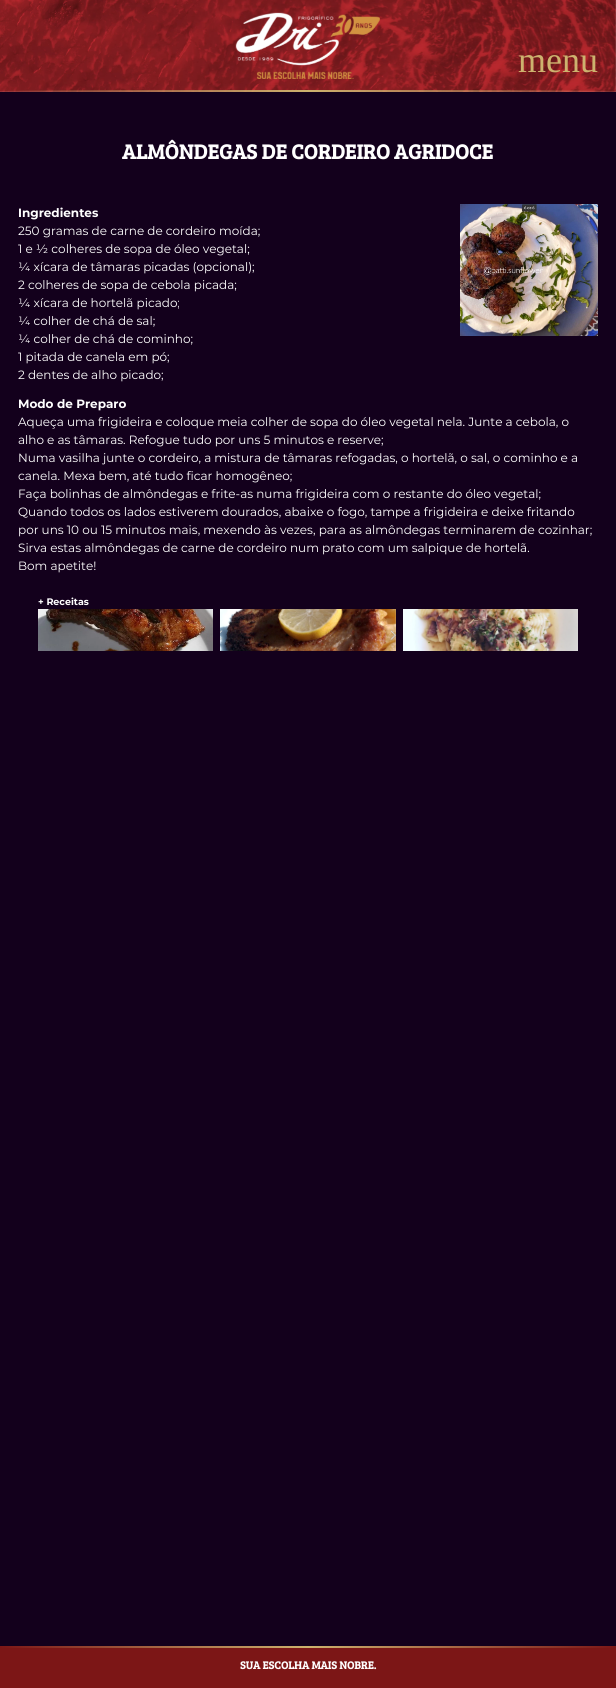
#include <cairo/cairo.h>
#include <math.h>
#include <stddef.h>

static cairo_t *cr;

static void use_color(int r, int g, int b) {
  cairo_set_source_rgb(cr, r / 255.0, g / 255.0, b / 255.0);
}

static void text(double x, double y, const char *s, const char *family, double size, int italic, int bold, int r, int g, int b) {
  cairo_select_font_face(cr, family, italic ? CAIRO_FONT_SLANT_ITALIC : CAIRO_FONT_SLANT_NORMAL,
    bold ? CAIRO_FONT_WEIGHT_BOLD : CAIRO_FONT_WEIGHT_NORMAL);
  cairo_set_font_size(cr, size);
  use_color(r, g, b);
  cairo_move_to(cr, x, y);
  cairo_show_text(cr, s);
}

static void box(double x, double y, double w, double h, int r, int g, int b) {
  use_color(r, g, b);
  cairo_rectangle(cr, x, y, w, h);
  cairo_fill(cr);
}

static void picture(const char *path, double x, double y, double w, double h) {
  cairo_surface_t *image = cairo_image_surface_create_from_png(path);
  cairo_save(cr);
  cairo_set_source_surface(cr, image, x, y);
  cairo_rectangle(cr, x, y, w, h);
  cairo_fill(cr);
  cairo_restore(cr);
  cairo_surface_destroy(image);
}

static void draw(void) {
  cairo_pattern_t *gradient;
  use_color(255, 255, 255);
  cairo_paint(cr);
  picture("img_01.png", 0, 0, 616, 92);
  picture("img_02.png", 235, 12, 145, 67);
  gradient = cairo_pattern_create_linear(0, 91, 616, 91);
  cairo_pattern_add_color_stop_rgba(gradient, 0, 0.804, 0.698, 0.431, 0);
  cairo_pattern_add_color_stop_rgba(gradient, 0.5, 0.804, 0.698, 0.431, 1);
  cairo_pattern_add_color_stop_rgba(gradient, 1, 0.804, 0.698, 0.431, 0);
  cairo_set_source(cr, gradient);
  cairo_pattern_destroy(gradient);
  cairo_rectangle(cr, 0, 90, 616, 2);
  cairo_fill(cr);
  box(0, 92, 616, 1554, 19, 0, 28);
  picture("img_03.png", 460, 204, 138, 132);
  picture("img_04.png", 38, 609, 175, 42);
  picture("img_05.png", 220, 609, 176, 42);
  picture("img_06.png", 403, 609, 175, 42);
  box(0, 1648, 616, 40, 124, 22, 22);
  gradient = cairo_pattern_create_linear(0, 1647, 616, 1647);
  cairo_pattern_add_color_stop_rgba(gradient, 0, 0.486, 0.086, 0.086, 1);
  cairo_pattern_add_color_stop_rgba(gradient, 0.5, 0.804, 0.698, 0.431, 1);
  cairo_pattern_add_color_stop_rgba(gradient, 1, 0.486, 0.086, 0.086, 1);
  cairo_set_source(cr, gradient);
  cairo_pattern_destroy(gradient);
  cairo_rectangle(cr, 0, 1646, 616, 2);
  cairo_fill(cr);
  text(518, 72, "menu", "Liberation Serif", 36, 0, 0, 205, 178, 110);
  text(122, 159, "ALMÔNDEGAS DE CORDEIRO AGRIDOCE", "Bree Serif", 21, 0, 1, 255, 255, 255);
  text(18, 217, "Ingredientes", "Montserrat", 12, 0, 1, 255, 255, 255);
  text(18, 235, "250 gramas de carne de cordeiro moída;", "Montserrat", 12, 0, 0, 255, 255, 255);
  text(18, 253, "1 e ½ colheres de sopa de óleo vegetal;", "Montserrat", 12, 0, 0, 255, 255, 255);
  text(18, 271, "¼ xícara de tâmaras picadas (opcional);", "Montserrat", 12, 0, 0, 255, 255, 255);
  text(18, 289, "2 colheres de sopa de cebola picada;", "Montserrat", 12, 0, 0, 255, 255, 255);
  text(18, 307, "¼ xícara de hortelã picado;", "Montserrat", 12, 0, 0, 255, 255, 255);
  text(18, 325, "¼ colher de chá de sal;", "Montserrat", 12, 0, 0, 255, 255, 255);
  text(18, 343, "¼ colher de chá de cominho;", "Montserrat", 12, 0, 0, 255, 255, 255);
  text(18, 361, "1 pitada de canela em pó;", "Montserrat", 12, 0, 0, 255, 255, 255);
  text(18, 379, "2 dentes de alho picado;", "Montserrat", 12, 0, 0, 255, 255, 255);
  text(18, 408, "Modo de Preparo", "Montserrat", 12, 0, 1, 255, 255, 255);
  text(18, 426, "Aqueça uma frigideira e coloque meia colher de sopa do óleo vegetal nela. Junte a cebola, o", "Montserrat", 12, 0, 0, 255, 255, 255);
  text(18, 444, "alho e as tâmaras. Refogue tudo por uns 5 minutos e reserve;", "Montserrat", 12, 0, 0, 255, 255, 255);
  text(18, 462, "Numa vasilha junte o cordeiro, a mistura de tâmaras refogadas, o hortelã, o sal, o cominho e a", "Montserrat", 12, 0, 0, 255, 255, 255);
  text(18, 480, "canela. Mexa bem, até tudo ficar homogêneo;", "Montserrat", 12, 0, 0, 255, 255, 255);
  text(18, 498, "Faça bolinhas de almôndegas e frite-as numa frigideira com o restante do óleo vegetal;", "Montserrat", 12, 0, 0, 255, 255, 255);
  text(18, 516, "Quando todos os lados estiverem dourados, abaixe o fogo, tampe a frigideira e deixe fritando", "Montserrat", 12, 0, 0, 255, 255, 255);
  text(18, 534, "por uns 10 ou 15 minutos mais, mexendo às vezes, para as almôndegas terminarem de cozinhar;", "Montserrat", 12, 0, 0, 255, 255, 255);
  text(18, 552, "Sirva estas almôndegas de carne de cordeiro num prato com um salpique de hortelã.", "Montserrat", 12, 0, 0, 255, 255, 255);
  text(18, 570, "Bom apetite!", "Montserrat", 12, 0, 0, 255, 255, 255);
  text(38, 605, "+ Receitas", "Montserrat", 9.5, 0, 1, 255, 255, 255);
  text(240, 1669, "SUA ESCOLHA MAIS NOBRE.", "Bree Serif", 11, 0, 1, 255, 255, 255);
}

int main(void) {
  cairo_surface_t *surface = cairo_image_surface_create(CAIRO_FORMAT_RGB24, 616, 1688);
  cr = cairo_create(surface);
  cairo_font_options_t *options = cairo_font_options_create();
  cairo_font_options_set_hint_metrics(options, CAIRO_HINT_METRICS_OFF);
  cairo_font_options_set_hint_style(options, CAIRO_HINT_STYLE_NONE);
  cairo_set_font_options(cr, options);
  cairo_set_miter_limit(cr, 4);
  draw();
  cairo_surface_write_to_png(surface, "out.png");
  cairo_font_options_destroy(options);
  cairo_destroy(cr);
  cairo_surface_destroy(surface);
  return 0;
}
